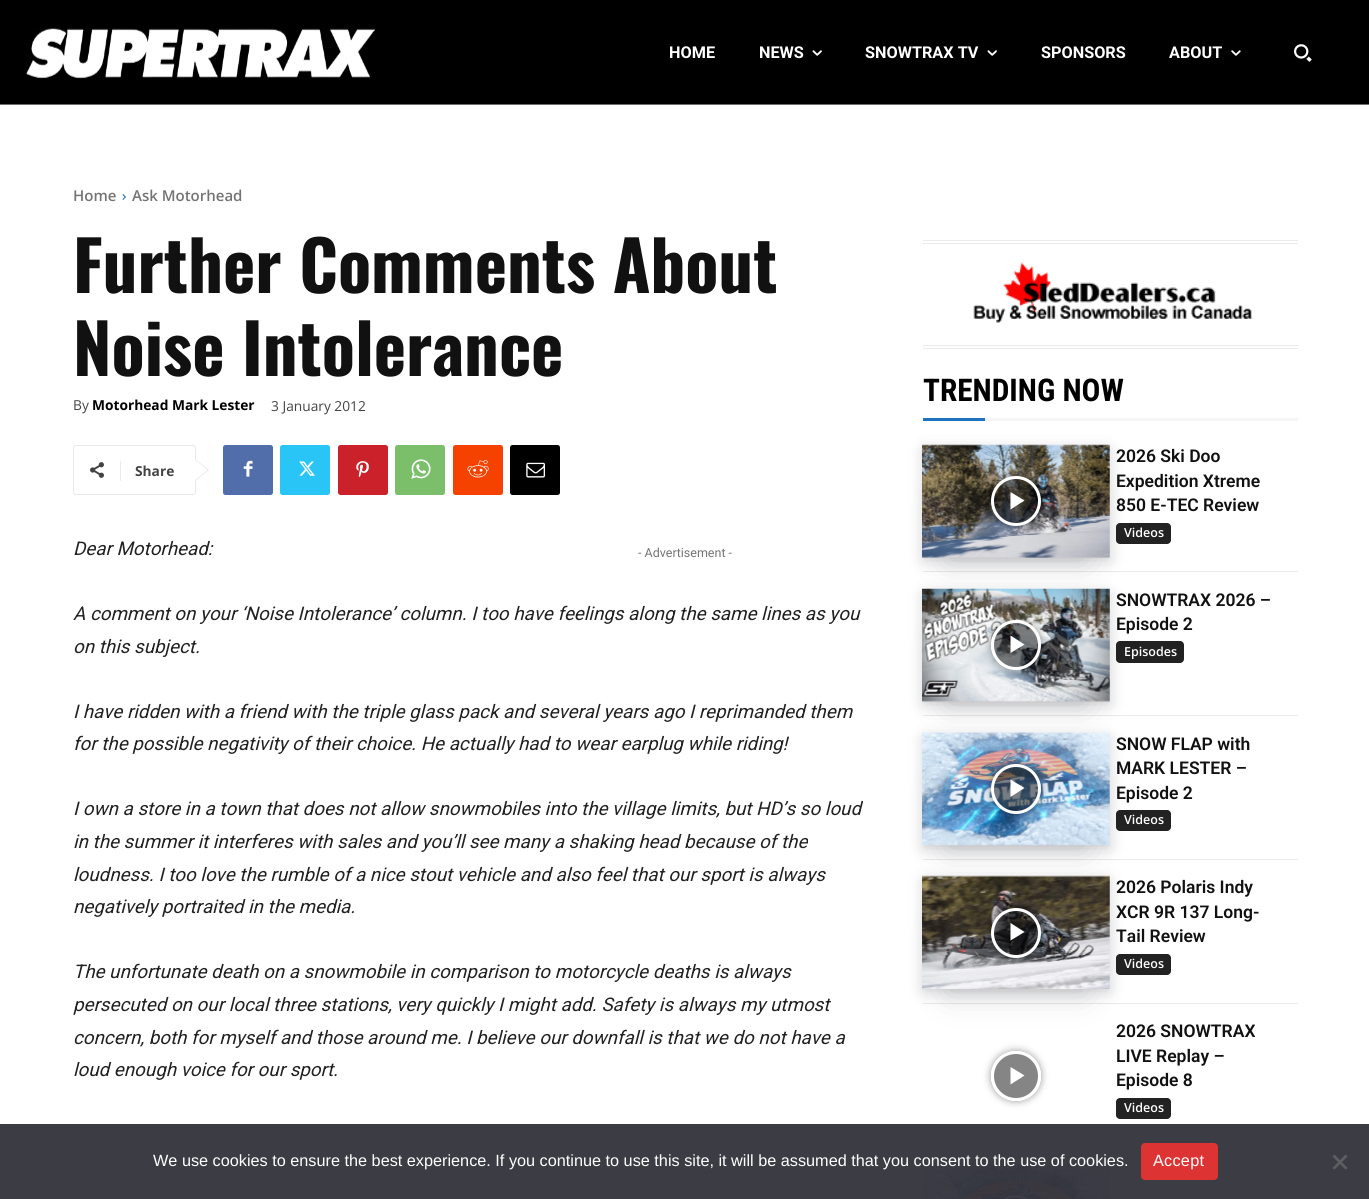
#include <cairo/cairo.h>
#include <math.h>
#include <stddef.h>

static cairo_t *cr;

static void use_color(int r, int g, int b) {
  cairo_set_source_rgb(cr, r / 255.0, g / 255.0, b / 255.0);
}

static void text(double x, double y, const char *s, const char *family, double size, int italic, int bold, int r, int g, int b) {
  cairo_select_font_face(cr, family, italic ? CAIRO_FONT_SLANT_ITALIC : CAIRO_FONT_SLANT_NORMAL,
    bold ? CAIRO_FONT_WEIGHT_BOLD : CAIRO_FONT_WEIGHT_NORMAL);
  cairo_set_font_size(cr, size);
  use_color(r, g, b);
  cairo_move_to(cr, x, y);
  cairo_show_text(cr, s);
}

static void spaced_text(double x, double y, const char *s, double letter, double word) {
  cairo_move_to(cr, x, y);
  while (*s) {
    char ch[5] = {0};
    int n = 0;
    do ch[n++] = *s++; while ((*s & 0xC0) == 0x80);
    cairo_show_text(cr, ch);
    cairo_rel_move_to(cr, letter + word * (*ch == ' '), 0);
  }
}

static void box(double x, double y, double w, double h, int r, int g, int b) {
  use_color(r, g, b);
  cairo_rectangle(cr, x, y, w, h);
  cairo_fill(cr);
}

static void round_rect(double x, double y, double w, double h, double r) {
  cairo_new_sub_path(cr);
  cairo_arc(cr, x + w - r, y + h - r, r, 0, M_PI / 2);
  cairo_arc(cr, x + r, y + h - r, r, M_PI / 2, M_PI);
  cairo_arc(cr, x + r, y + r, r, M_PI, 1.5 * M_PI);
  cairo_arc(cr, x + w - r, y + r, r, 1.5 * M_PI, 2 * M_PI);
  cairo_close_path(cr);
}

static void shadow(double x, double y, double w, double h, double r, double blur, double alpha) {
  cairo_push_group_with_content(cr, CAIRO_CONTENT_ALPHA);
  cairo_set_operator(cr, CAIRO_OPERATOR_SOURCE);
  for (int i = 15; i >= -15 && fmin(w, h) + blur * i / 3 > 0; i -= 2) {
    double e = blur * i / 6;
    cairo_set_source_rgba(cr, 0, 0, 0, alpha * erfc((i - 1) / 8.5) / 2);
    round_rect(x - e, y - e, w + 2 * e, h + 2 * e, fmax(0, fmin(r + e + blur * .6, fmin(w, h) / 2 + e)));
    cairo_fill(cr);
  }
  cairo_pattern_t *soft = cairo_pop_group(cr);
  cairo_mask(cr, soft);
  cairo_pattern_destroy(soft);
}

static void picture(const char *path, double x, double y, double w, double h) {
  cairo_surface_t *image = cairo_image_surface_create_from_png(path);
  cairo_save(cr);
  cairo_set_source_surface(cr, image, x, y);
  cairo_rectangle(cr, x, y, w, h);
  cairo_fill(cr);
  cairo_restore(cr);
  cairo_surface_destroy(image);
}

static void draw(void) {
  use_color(255, 255, 255);
  cairo_paint(cr);
  box(0, 1124, 1369, 75, 60, 60, 68);
  box(0, 0, 1369, 104, 0, 0, 0);
  box(0, 104, 1369, 1, 109, 109, 109);
  picture("img_01.png", 26, 28, 349, 51);
  picture("img_02.png", 812, 50, 10, 6);
  picture("img_02.png", 987, 50, 10, 6);
  picture("img_03.png", 1231, 50, 10, 6);
  picture("img_04.png", 1294, 44, 18, 18);
  picture("img_05.png", 122, 194, 4, 6);
  round_rect(73.5, 445.5, 122, 49, 2);
  use_color(233, 233, 233);
  cairo_set_line_width(cr, 1);
  cairo_stroke(cr);
  cairo_new_path(cr);
  cairo_move_to(cr, 195, 481);
  cairo_line_to(cr, 195, 459);
  cairo_line_to(cr, 209, 470);
  cairo_close_path(cr);
  cairo_fill(cr);
  picture("img_06.png", 90, 462, 14, 16);
  box(120, 461, 1, 20, 235, 235, 235);
  use_color(255, 255, 255);
  cairo_new_path(cr);
  cairo_move_to(cr, 195, 480);
  cairo_line_to(cr, 195, 460);
  cairo_line_to(cr, 207.5, 470);
  cairo_close_path(cr);
  cairo_fill(cr);
  use_color(81, 110, 171);
  round_rect(223, 445, 50, 50, 2.5);
  cairo_fill(cr);
  picture("img_07.png", 243, 460, 10, 17);
  use_color(41, 197, 246);
  round_rect(280, 445, 50, 50, 2.5);
  cairo_fill(cr);
  picture("img_08.png", 299, 461, 16, 15);
  use_color(202, 33, 42);
  round_rect(338, 445, 50, 50, 2.5);
  cairo_fill(cr);
  picture("img_09.png", 356, 461, 13, 17);
  use_color(123, 191, 106);
  round_rect(395, 445, 50, 50, 2.5);
  cairo_fill(cr);
  picture("img_10.png", 411, 459, 20, 20);
  use_color(245, 66, 0);
  round_rect(453, 445, 50, 50, 2.5);
  cairo_fill(cr);
  picture("img_11.png", 467, 460, 22, 18);
  use_color(0, 0, 0);
  round_rect(510, 445, 50, 50, 2.5);
  cairo_fill(cr);
  picture("img_12.png", 526, 462, 19, 16);
  box(923, 240, 375, 1, 235, 235, 235);
  box(923, 243, 375, 1, 235, 235, 235);
  picture("img_13.png", 973, 262, 280, 61);
  box(923, 345, 375, 1, 235, 235, 235);
  box(923, 348, 375, 1, 235, 235, 235);
  box(923, 418, 62, 3, 30, 115, 190);
  box(985, 418, 313, 3, 245, 245, 245);
  box(923, 571, 375, 1, 234, 234, 234);
  use_color(7, 10, 25);
  shadow(948, 498, 137, 62, 0, 17, 0.2);
  shadow(924, 450, 185, 110, 0, 7.5, 0.2);
  picture("img_14.png", 922, 444, 188, 114);
  cairo_save(cr);
  cairo_set_fill_rule(cr, CAIRO_FILL_RULE_EVEN_ODD);
  cairo_new_path(cr);
  cairo_move_to(cr, 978, 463);
  cairo_line_to(cr, 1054, 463);
  cairo_line_to(cr, 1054, 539);
  cairo_line_to(cr, 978, 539);
  cairo_close_path(cr);
  cairo_move_to(cr, 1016, 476);
  cairo_curve_to(cr, 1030, 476, 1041, 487, 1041, 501);
  cairo_curve_to(cr, 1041, 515, 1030, 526, 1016, 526);
  cairo_curve_to(cr, 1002, 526, 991, 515, 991, 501);
  cairo_curve_to(cr, 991, 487, 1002, 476, 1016, 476);
  cairo_close_path(cr);
  cairo_clip(cr);
  use_color(0, 0, 0);
  shadow(991, 476, 50, 50, 25, 4, 0.4);
  cairo_restore(cr);
  cairo_set_source_rgba(cr, 0, 0, 0, 0.48);
  cairo_arc(cr, 1016, 501, 23.5, 0, 2 * M_PI);
  cairo_fill_preserve(cr);
  use_color(255, 255, 255);
  cairo_set_line_width(cr, 3);
  cairo_stroke(cr);
  cairo_new_path(cr);
  cairo_move_to(cr, 1010.5, 492);
  cairo_line_to(cr, 1010.5, 509.5);
  cairo_line_to(cr, 1024.5, 500.5);
  cairo_close_path(cr);
  cairo_fill(cr);
  use_color(34, 34, 34);
  round_rect(1116, 523, 55, 21, 4);
  cairo_fill(cr);
  box(923, 715, 375, 1, 234, 234, 234);
  use_color(7, 10, 25);
  shadow(948, 641, 137, 63, 0, 17, 0.2);
  shadow(924, 594, 185, 110, 0, 7.5, 0.2);
  picture("img_15.png", 922, 588, 188, 114);
  cairo_save(cr);
  cairo_set_fill_rule(cr, CAIRO_FILL_RULE_EVEN_ODD);
  cairo_new_path(cr);
  cairo_move_to(cr, 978, 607);
  cairo_line_to(cr, 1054, 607);
  cairo_line_to(cr, 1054, 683);
  cairo_line_to(cr, 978, 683);
  cairo_close_path(cr);
  cairo_move_to(cr, 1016, 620);
  cairo_curve_to(cr, 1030, 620, 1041, 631, 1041, 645);
  cairo_curve_to(cr, 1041, 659, 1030, 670, 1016, 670);
  cairo_curve_to(cr, 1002, 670, 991, 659, 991, 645);
  cairo_curve_to(cr, 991, 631, 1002, 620, 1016, 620);
  cairo_close_path(cr);
  cairo_clip(cr);
  use_color(0, 0, 0);
  shadow(991, 620, 50, 50, 25, 4, 0.4);
  cairo_restore(cr);
  cairo_set_source_rgba(cr, 0, 0, 0, 0.48);
  cairo_arc(cr, 1016, 645, 23.5, 0, 2 * M_PI);
  cairo_fill_preserve(cr);
  use_color(255, 255, 255);
  cairo_stroke(cr);
  cairo_new_path(cr);
  cairo_move_to(cr, 1010.5, 635.5);
  cairo_line_to(cr, 1010.5, 653);
  cairo_line_to(cr, 1024.5, 644.5);
  cairo_close_path(cr);
  cairo_fill(cr);
  use_color(34, 34, 34);
  round_rect(1116, 641, 68, 22, 4);
  cairo_fill(cr);
  box(923, 859, 375, 1, 234, 234, 234);
  use_color(7, 10, 25);
  shadow(948, 785, 137, 63, 0, 17, 0.2);
  shadow(924, 738, 185, 110, 0, 7.5, 0.2);
  picture("img_16.png", 922, 731, 188, 115);
  cairo_save(cr);
  cairo_set_fill_rule(cr, CAIRO_FILL_RULE_EVEN_ODD);
  cairo_new_path(cr);
  cairo_move_to(cr, 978, 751);
  cairo_line_to(cr, 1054, 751);
  cairo_line_to(cr, 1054, 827);
  cairo_line_to(cr, 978, 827);
  cairo_close_path(cr);
  cairo_move_to(cr, 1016, 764);
  cairo_curve_to(cr, 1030, 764, 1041, 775, 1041, 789);
  cairo_curve_to(cr, 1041, 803, 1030, 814, 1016, 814);
  cairo_curve_to(cr, 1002, 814, 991, 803, 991, 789);
  cairo_curve_to(cr, 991, 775, 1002, 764, 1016, 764);
  cairo_close_path(cr);
  cairo_clip(cr);
  use_color(0, 0, 0);
  shadow(991, 764, 50, 50, 25, 4, 0.4);
  cairo_restore(cr);
  cairo_set_source_rgba(cr, 0, 0, 0, 0.48);
  cairo_arc(cr, 1016, 789, 23.5, 0, 2 * M_PI);
  cairo_fill_preserve(cr);
  use_color(255, 255, 255);
  cairo_stroke(cr);
  cairo_new_path(cr);
  cairo_move_to(cr, 1010.5, 779.5);
  cairo_line_to(cr, 1010.5, 797);
  cairo_line_to(cr, 1024.5, 788);
  cairo_close_path(cr);
  cairo_fill(cr);
  use_color(34, 34, 34);
  round_rect(1116, 810, 55, 21, 4);
  cairo_fill(cr);
  box(923, 1003, 375, 1, 234, 234, 234);
  use_color(7, 10, 25);
  shadow(948, 929, 137, 62, 0, 17, 0.2);
  shadow(924, 881, 185, 110, 0, 7.5, 0.2);
  picture("img_17.png", 922, 875, 188, 114);
  cairo_save(cr);
  cairo_set_fill_rule(cr, CAIRO_FILL_RULE_EVEN_ODD);
  cairo_new_path(cr);
  cairo_move_to(cr, 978, 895);
  cairo_line_to(cr, 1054, 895);
  cairo_line_to(cr, 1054, 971);
  cairo_line_to(cr, 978, 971);
  cairo_close_path(cr);
  cairo_move_to(cr, 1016, 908);
  cairo_curve_to(cr, 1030, 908, 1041, 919, 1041, 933);
  cairo_curve_to(cr, 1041, 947, 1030, 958, 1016, 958);
  cairo_curve_to(cr, 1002, 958, 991, 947, 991, 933);
  cairo_curve_to(cr, 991, 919, 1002, 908, 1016, 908);
  cairo_close_path(cr);
  cairo_clip(cr);
  use_color(0, 0, 0);
  shadow(991, 908, 50, 50, 25, 4, 0.4);
  cairo_restore(cr);
  cairo_set_source_rgba(cr, 0, 0, 0, 0.48);
  cairo_arc(cr, 1016, 933, 23.5, 0, 2 * M_PI);
  cairo_fill_preserve(cr);
  use_color(255, 255, 255);
  cairo_stroke(cr);
  cairo_new_path(cr);
  cairo_move_to(cr, 1010.5, 923);
  cairo_line_to(cr, 1010.5, 940.5);
  cairo_line_to(cr, 1024.5, 932);
  cairo_close_path(cr);
  cairo_fill(cr);
  use_color(34, 34, 34);
  round_rect(1116, 954, 55, 21, 4);
  cairo_fill(cr);
  cairo_save(cr);
  cairo_set_fill_rule(cr, CAIRO_FILL_RULE_EVEN_ODD);
  cairo_new_path(cr);
  cairo_move_to(cr, 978, 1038);
  cairo_line_to(cr, 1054, 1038);
  cairo_line_to(cr, 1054, 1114);
  cairo_line_to(cr, 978, 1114);
  cairo_close_path(cr);
  cairo_move_to(cr, 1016, 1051);
  cairo_curve_to(cr, 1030, 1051, 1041, 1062, 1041, 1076);
  cairo_curve_to(cr, 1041, 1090, 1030, 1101, 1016, 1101);
  cairo_curve_to(cr, 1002, 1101, 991, 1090, 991, 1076);
  cairo_curve_to(cr, 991, 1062, 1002, 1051, 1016, 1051);
  cairo_close_path(cr);
  cairo_clip(cr);
  use_color(0, 0, 0);
  shadow(991, 1051, 50, 50, 25, 4, 0.4);
  cairo_restore(cr);
  cairo_set_source_rgba(cr, 0, 0, 0, 0.48);
  cairo_arc(cr, 1016, 1076, 23.5, 0, 2 * M_PI);
  cairo_fill_preserve(cr);
  use_color(255, 255, 255);
  cairo_stroke(cr);
  cairo_new_path(cr);
  cairo_move_to(cr, 1010.5, 1067);
  cairo_line_to(cr, 1010.5, 1084.5);
  cairo_line_to(cr, 1024.5, 1075.5);
  cairo_close_path(cr);
  cairo_fill(cr);
  use_color(34, 34, 34);
  round_rect(1116, 1098, 55, 21, 4);
  cairo_fill(cr);
  picture("img_18.png", 922, 1163, 188, 36);
  cairo_set_source_rgba(cr, 0.188, 0.188, 0.216, 0.48);
  round_rect(992.5, 1196.5, 47, 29, 23.5);
  cairo_fill_preserve(cr);
  use_color(60, 60, 68);
  cairo_stroke(cr);
  use_color(221, 51, 51);
  round_rect(1141, 1143, 77, 37, 4);
  cairo_fill(cr);
  use_color(94, 94, 98);
  cairo_new_path(cr);
  cairo_move_to(cr, 1345.5, 1154.5);
  cairo_line_to(cr, 1347.5, 1156.5);
  cairo_line_to(cr, 1334.5, 1169.5);
  cairo_line_to(cr, 1332.5, 1168);
  cairo_close_path(cr);
  cairo_fill(cr);
  cairo_new_path(cr);
  cairo_move_to(cr, 1332.5, 1156.5);
  cairo_line_to(cr, 1334.5, 1154.5);
  cairo_line_to(cr, 1347.5, 1168);
  cairo_line_to(cr, 1345.5, 1169.5);
  cairo_close_path(cr);
  cairo_fill(cr);
  text(669, 58, "HOME", "Roboto", 16.25, 0, 1, 255, 255, 255);
  text(759, 58, "NEWS", "Roboto", 16.25, 0, 1, 255, 255, 255);
  text(865, 58, "SNOWTRAX TV", "Roboto", 16.25, 0, 1, 255, 255, 255);
  text(1041, 58, "SPONSORS", "Roboto", 16.25, 0, 1, 255, 255, 255);
  text(1169, 58, "ABOUT", "Roboto", 16.25, 0, 1, 255, 255, 255);
  text(73, 201, "Home", "Open Sans SemiBold", 15, 0, 0, 116, 116, 116);
  text(132, 201, "Ask Motorhead", "Open Sans SemiBold", 15, 0, 0, 116, 116, 116);
  text(73, 293, "Further Comments About", "Oswald", 68.75, 0, 1, 17, 17, 17);
  text(73, 376, "Noise Intolerance", "Oswald", 68.75, 0, 1, 17, 17, 17);
  text(73, 410, "By", "Open Sans", 13.75, 0, 0, 68, 68, 68);
  text(92, 410, "Motorhead Mark Lester", "Open Sans", 13.75, 0, 1, 0, 0, 0);
  text(271, 411, "3 January 2012", "Open Sans", 13.75, 0, 0, 68, 68, 68);
  text(135, 476, "Share", "Open Sans", 13.75, 0, 1, 68, 68, 68);
  text(73, 555, "Dear Motorhead:", "Roboto", 18.75, 1, 0, 34, 34, 34);
  text(638, 557, "- Advertisement -", "Roboto", 12.5, 0, 0, 116, 116, 116);
  text(73, 620, "A comment on your ‘Noise Intolerance’ column. I too have feelings along the same lines as you", "Roboto", 18.75, 1, 0, 34, 34, 34);
  text(73, 653, "on this subject.", "Roboto", 18.75, 1, 0, 34, 34, 34);
  text(73, 718, "I have ridden with a friend with the triple glass pack and several years ago I reprimanded them", "Roboto", 18.75, 1, 0, 34, 34, 34);
  text(73, 750, "for the possible negativity of their choice. He actually had to wear earplug while riding!", "Roboto", 18.75, 1, 0, 34, 34, 34);
  text(73, 815, "I own a store in a town that does not allow snowmobiles into the village limits, but HD’s so loud", "Roboto", 18.75, 1, 0, 34, 34, 34);
  text(73, 848, "in the summer it interferes with sales and you’ll see many a shaking head because of the", "Roboto", 18.75, 1, 0, 34, 34, 34);
  text(73, 881, "loudness. I too love the rumble of a nice stout vehicle and also feel that our sport is always", "Roboto", 18.75, 1, 0, 34, 34, 34);
  text(73, 913, "negatively portraited in the media.", "Roboto", 18.75, 1, 0, 34, 34, 34);
  text(73, 978, "The unfortunate death on a snowmobile in comparison to motorcycle deaths is always", "Roboto", 18.75, 1, 0, 34, 34, 34);
  text(73, 1011, "persecuted on our local three stations, very quickly I might add. Safety is always my utmost", "Roboto", 18.75, 1, 0, 34, 34, 34);
  text(73, 1044, "concern, both for myself and those around me. I believe our downfall is that we do not have a", "Roboto", 18.75, 1, 0, 34, 34, 34);
  text(73, 1076, "loud enough voice for our sport.", "Roboto", 18.75, 1, 0, 34, 34, 34);
  text(923, 401, "TRENDING NOW", "Roboto Condensed", 31.25, 0, 1, 0, 0, 0);
  text(1116, 462, "2026 Ski Doo", "Roboto SemiBold", 17.5, 0, 0, 17, 17, 17);
  text(1116, 487, "Expedition Xtreme", "Roboto SemiBold", 17.5, 0, 0, 17, 17, 17);
  text(1116, 511, "850 E-TEC Review", "Roboto SemiBold", 17.5, 0, 0, 17, 17, 17);
  text(1124, 537, "Videos", "Open Sans SemiBold", 12.5, 0, 0, 255, 255, 255);
  text(1116, 606, "SNOWTRAX 2026 –", "Roboto SemiBold", 17.5, 0, 0, 17, 17, 17);
  text(1116, 630, "Episode 2", "Roboto SemiBold", 17.5, 0, 0, 17, 17, 17);
  text(1124, 656, "Episodes", "Open Sans SemiBold", 12.5, 0, 0, 255, 255, 255);
  text(1116, 750, "SNOW FLAP with", "Roboto SemiBold", 17.5, 0, 0, 17, 17, 17);
  text(1116, 774, "MARK LESTER –", "Roboto SemiBold", 17.5, 0, 0, 17, 17, 17);
  text(1116, 799, "Episode 2", "Roboto SemiBold", 17.5, 0, 0, 17, 17, 17);
  text(1124, 824, "Videos", "Open Sans SemiBold", 12.5, 0, 0, 255, 255, 255);
  text(1116, 893, "2026 Polaris Indy", "Roboto SemiBold", 17.5, 0, 0, 17, 17, 17);
  text(1116, 918, "XCR 9R 137 Long-", "Roboto SemiBold", 17.5, 0, 0, 17, 17, 17);
  text(1116, 942, "Tail Review", "Roboto SemiBold", 17.5, 0, 0, 17, 17, 17);
  text(1124, 968, "Videos", "Open Sans SemiBold", 12.5, 0, 0, 255, 255, 255);
  text(1116, 1037, "2026 SNOWTRAX", "Roboto SemiBold", 17.5, 0, 0, 17, 17, 17);
  text(1116, 1062, "LIVE Replay –", "Roboto SemiBold", 17.5, 0, 0, 17, 17, 17);
  text(1116, 1086, "Episode 8", "Roboto SemiBold", 17.5, 0, 0, 17, 17, 17);
  text(1124, 1112, "Videos", "Open Sans SemiBold", 12.5, 0, 0, 255, 255, 255);
  text(153, 1166, "We use cookies to ensure the best experience. If you continue to use this site, it will be assumed that you consent to the use of cookies.", "Liberation Sans", 16.25, 0, 0, 255, 255, 255);
  spaced_text(1153, 1166, "Accept", 0.25, 0);
}

int main(void) {
  cairo_surface_t *surface = cairo_image_surface_create(CAIRO_FORMAT_RGB24, 1369, 1199);
  cr = cairo_create(surface);
  cairo_font_options_t *options = cairo_font_options_create();
  cairo_font_options_set_hint_metrics(options, CAIRO_HINT_METRICS_OFF);
  cairo_font_options_set_hint_style(options, CAIRO_HINT_STYLE_NONE);
  cairo_set_font_options(cr, options);
  cairo_set_miter_limit(cr, 4);
  draw();
  cairo_surface_write_to_png(surface, "out.png");
  cairo_font_options_destroy(options);
  cairo_destroy(cr);
  cairo_surface_destroy(surface);
  return 0;
}
